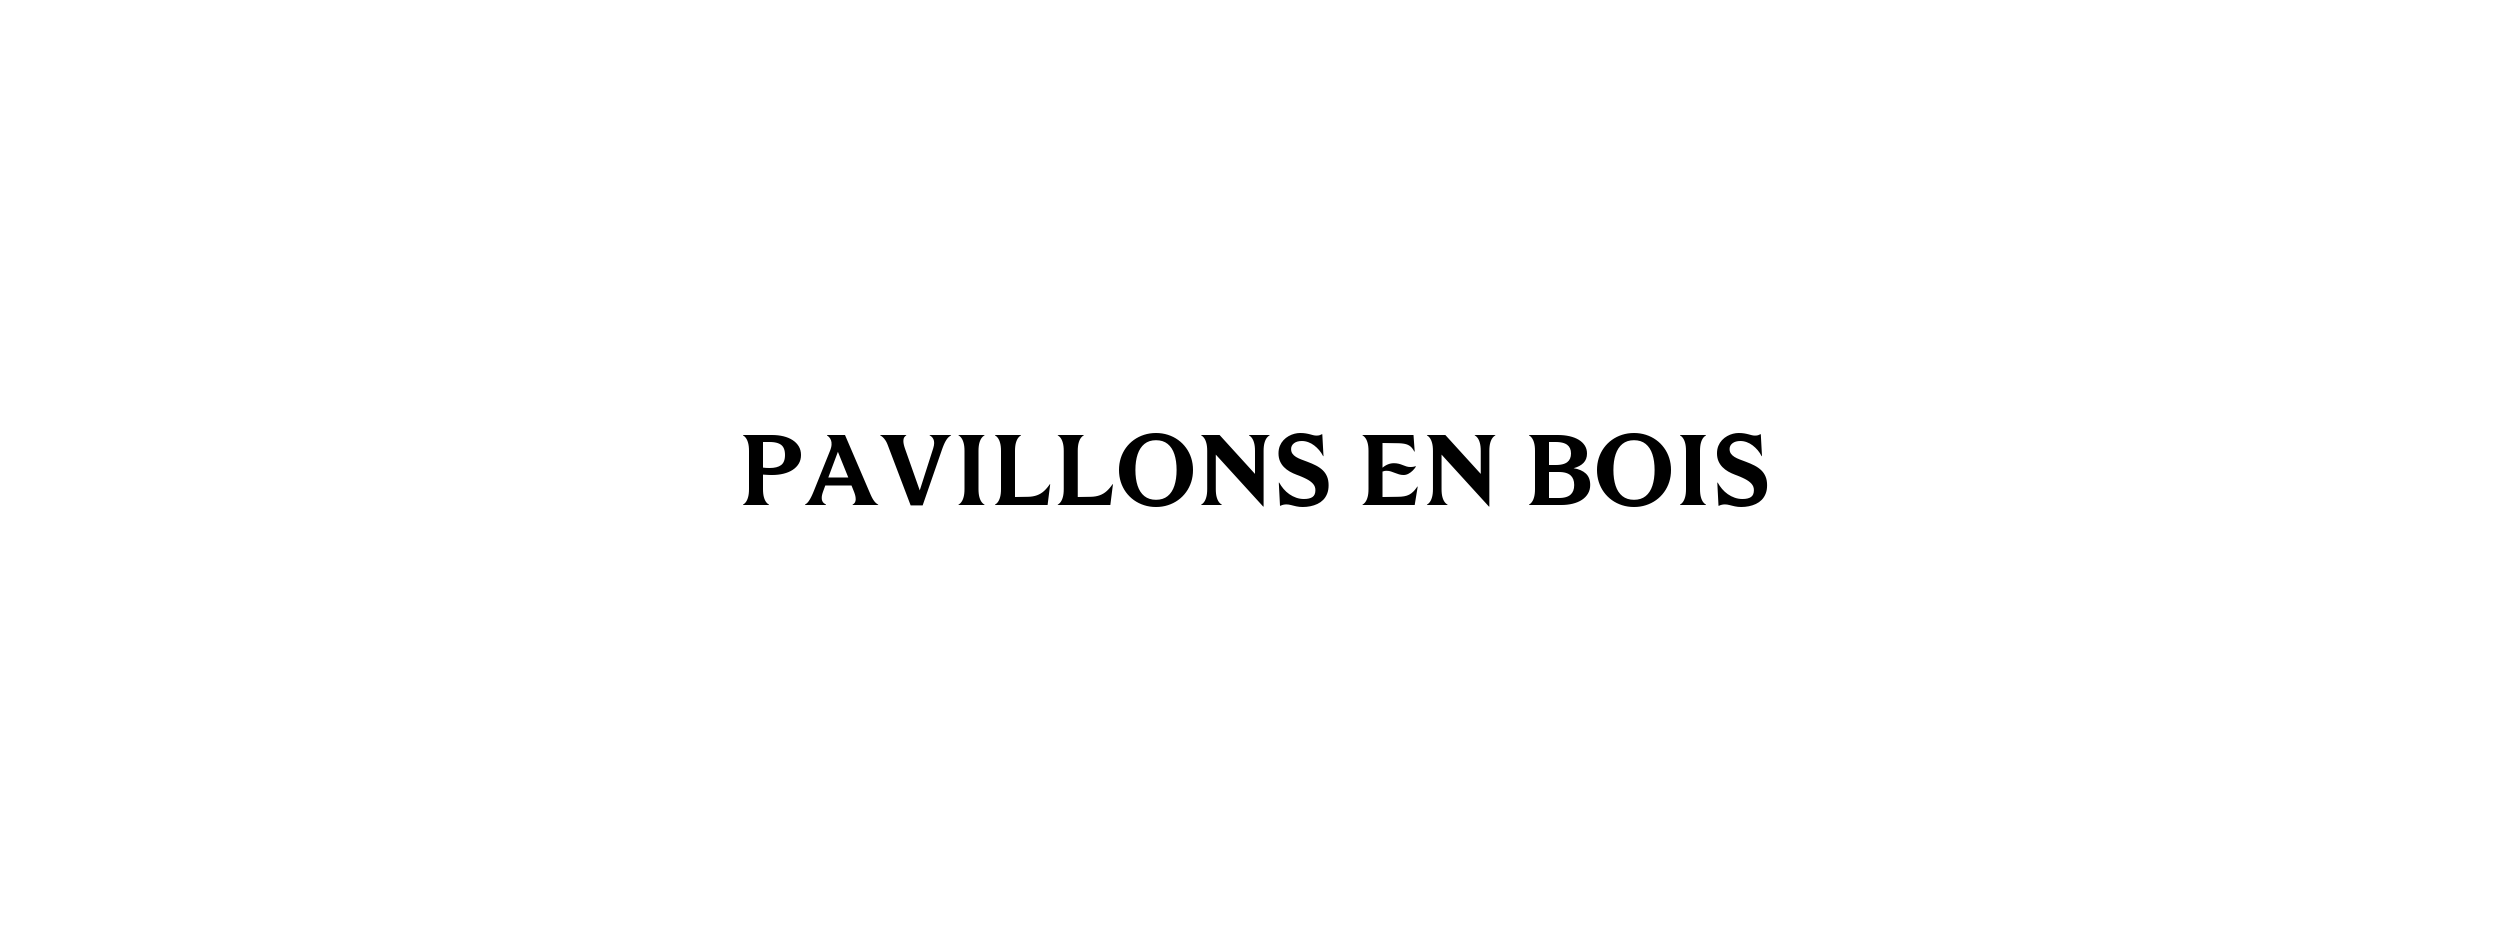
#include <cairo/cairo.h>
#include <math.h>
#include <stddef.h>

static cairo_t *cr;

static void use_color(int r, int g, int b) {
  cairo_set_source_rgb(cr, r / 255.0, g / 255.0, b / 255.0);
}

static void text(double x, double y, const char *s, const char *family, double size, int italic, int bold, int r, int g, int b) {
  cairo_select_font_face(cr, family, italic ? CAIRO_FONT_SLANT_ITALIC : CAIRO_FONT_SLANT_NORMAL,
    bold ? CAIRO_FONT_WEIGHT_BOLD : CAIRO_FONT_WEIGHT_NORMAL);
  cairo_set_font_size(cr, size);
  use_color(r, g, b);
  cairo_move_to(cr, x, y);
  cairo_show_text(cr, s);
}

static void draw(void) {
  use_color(255, 255, 255);
  cairo_paint(cr);
  text(738, 505, "PAVILLONS EN BOIS", "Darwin", 100, 0, 0, 0, 0, 0);
}

int main(void) {
  cairo_surface_t *surface = cairo_image_surface_create(CAIRO_FORMAT_RGB24, 2508, 937);
  cr = cairo_create(surface);
  cairo_font_options_t *options = cairo_font_options_create();
  cairo_font_options_set_hint_metrics(options, CAIRO_HINT_METRICS_OFF);
  cairo_font_options_set_hint_style(options, CAIRO_HINT_STYLE_NONE);
  cairo_set_font_options(cr, options);
  cairo_set_miter_limit(cr, 4);
  draw();
  cairo_surface_write_to_png(surface, "out.png");
  cairo_font_options_destroy(options);
  cairo_destroy(cr);
  cairo_surface_destroy(surface);
  return 0;
}
